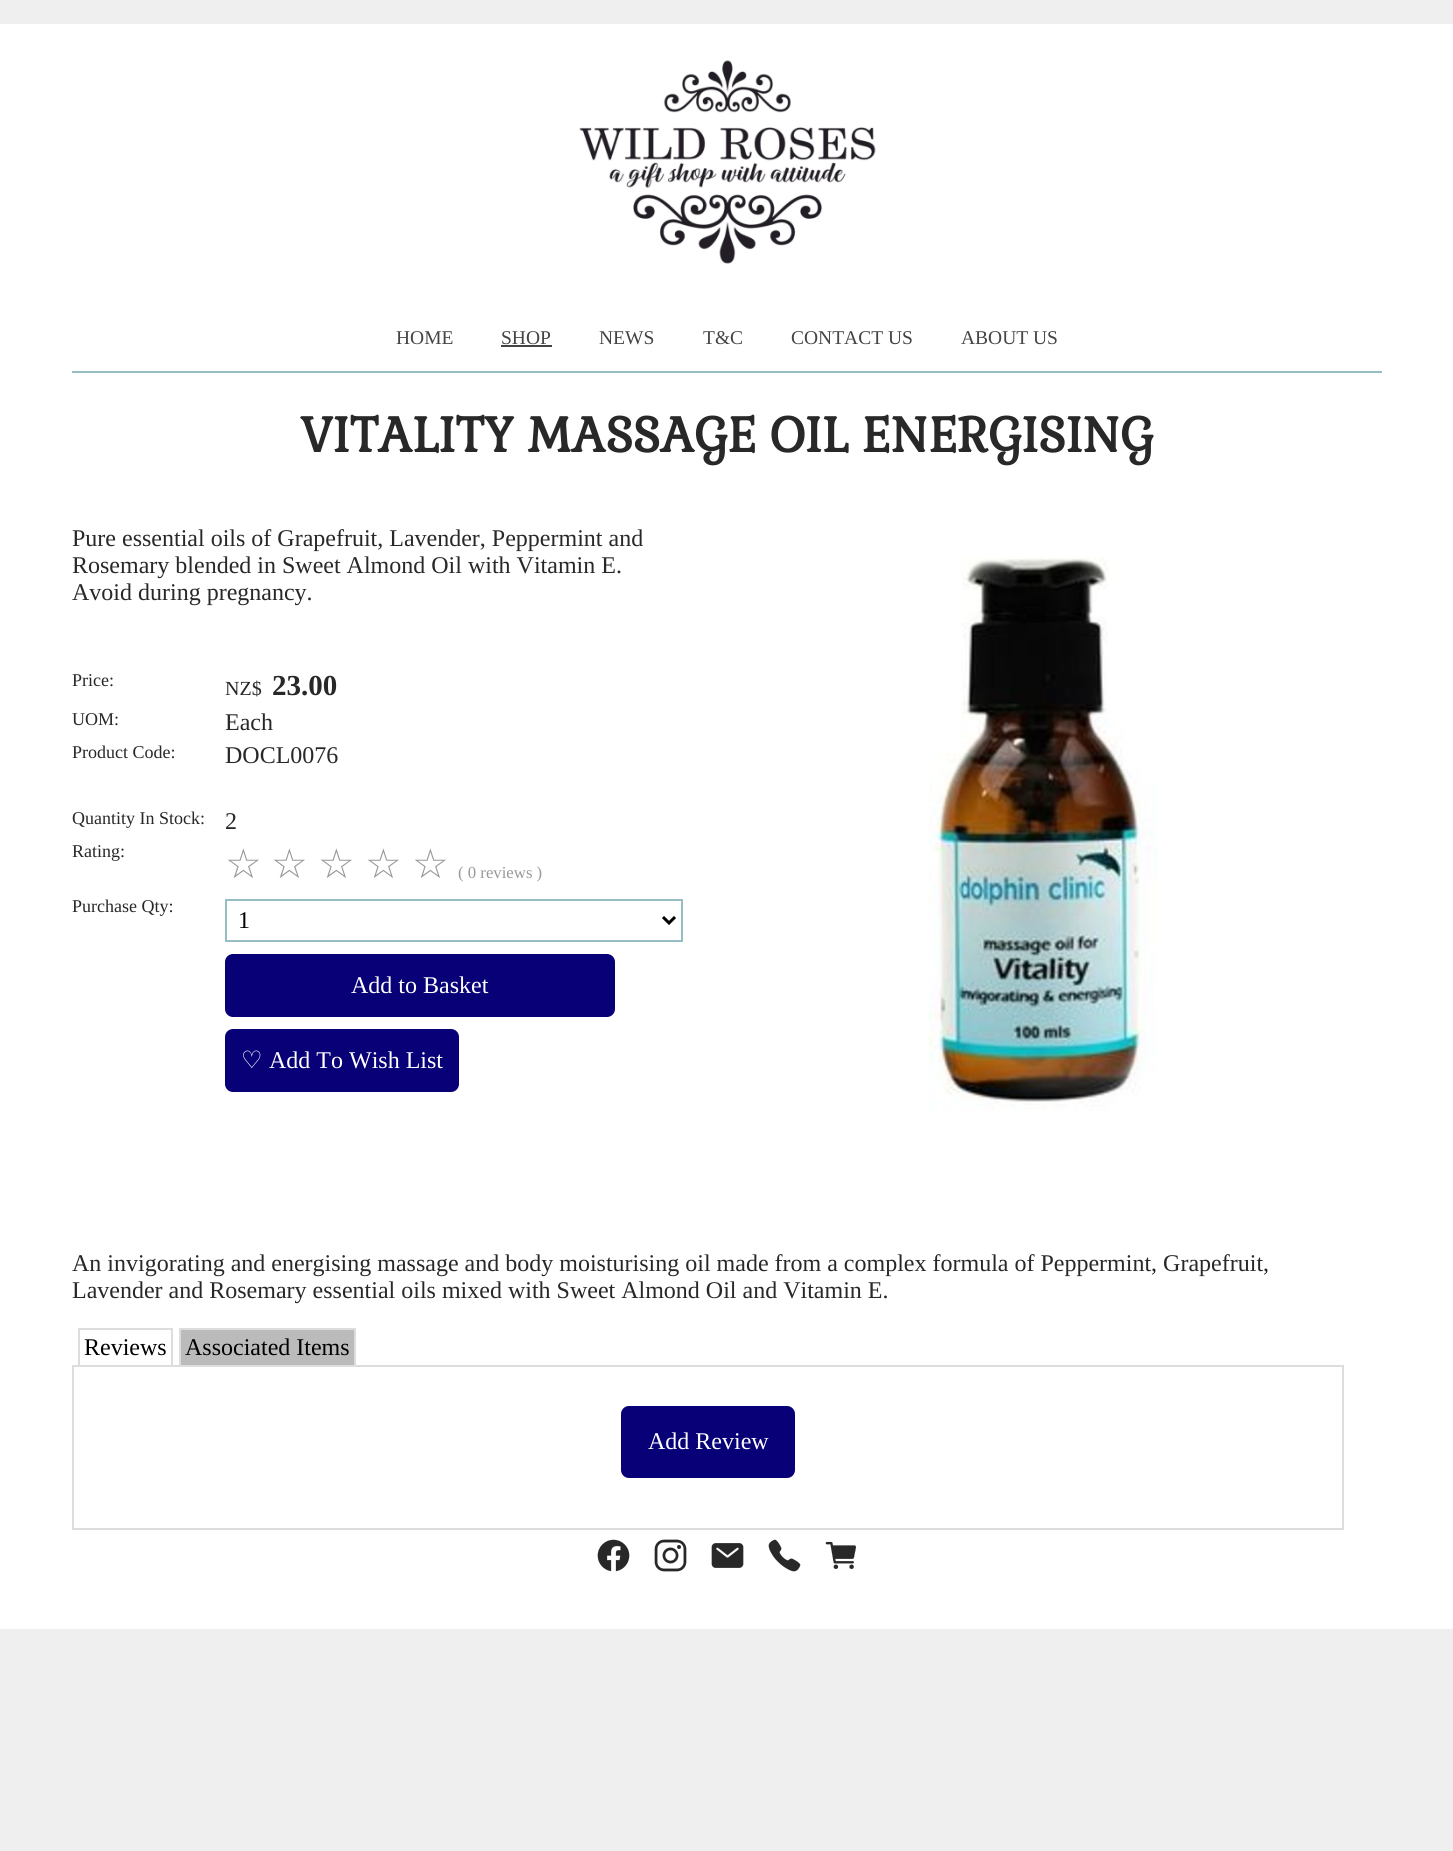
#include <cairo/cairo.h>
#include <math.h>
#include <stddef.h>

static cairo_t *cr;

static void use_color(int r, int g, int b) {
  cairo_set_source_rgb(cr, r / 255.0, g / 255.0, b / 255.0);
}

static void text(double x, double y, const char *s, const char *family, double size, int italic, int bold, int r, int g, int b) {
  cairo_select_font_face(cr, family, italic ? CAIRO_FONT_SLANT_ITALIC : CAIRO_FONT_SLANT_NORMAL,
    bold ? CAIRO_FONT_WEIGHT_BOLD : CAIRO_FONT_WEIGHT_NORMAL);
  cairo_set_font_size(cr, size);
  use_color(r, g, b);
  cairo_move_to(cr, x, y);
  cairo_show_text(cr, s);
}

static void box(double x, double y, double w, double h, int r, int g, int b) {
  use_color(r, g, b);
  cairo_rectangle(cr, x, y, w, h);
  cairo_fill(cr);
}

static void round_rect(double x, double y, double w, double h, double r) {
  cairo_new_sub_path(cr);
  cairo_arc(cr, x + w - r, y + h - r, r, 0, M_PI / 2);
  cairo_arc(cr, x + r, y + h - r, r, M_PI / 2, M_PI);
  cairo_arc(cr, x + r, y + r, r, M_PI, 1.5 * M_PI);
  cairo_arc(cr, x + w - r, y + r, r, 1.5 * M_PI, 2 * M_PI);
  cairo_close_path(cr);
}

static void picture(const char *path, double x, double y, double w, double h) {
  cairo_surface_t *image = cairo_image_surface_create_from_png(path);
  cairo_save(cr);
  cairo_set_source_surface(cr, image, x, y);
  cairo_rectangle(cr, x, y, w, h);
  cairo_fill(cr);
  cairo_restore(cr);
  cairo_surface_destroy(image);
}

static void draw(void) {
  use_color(239, 239, 239);
  cairo_paint(cr);
  box(0, 24, 1453, 1605, 255, 255, 255);
  picture("img_01.png", 579, 60, 297, 204);
  box(72, 371, 1310, 2, 151, 191, 195);
  box(501, 345, 51, 2, 68, 68, 68);
  cairo_rectangle(cr, 226, 900, 456, 41);
  use_color(151, 191, 195);
  cairo_stroke(cr);
  cairo_new_path(cr);
  cairo_move_to(cr, 663, 917);
  cairo_line_to(cr, 669, 923);
  cairo_line_to(cr, 675, 917);
  use_color(0, 0, 0);
  cairo_set_line_width(cr, 3);
  cairo_stroke(cr);
  use_color(7, 0, 119);
  round_rect(226, 955, 388, 61, 7);
  cairo_fill_preserve(cr);
  cairo_set_line_width(cr, 2);
  cairo_stroke(cr);
  round_rect(226, 1030, 232, 61, 7);
  cairo_fill_preserve(cr);
  cairo_stroke(cr);
  picture("img_02.png", 928, 557, 229, 554);
  box(78, 1328, 95, 2, 221, 221, 221);
  box(171, 1328, 2, 37, 221, 221, 221);
  box(78, 1328, 2, 37, 221, 221, 221);
  box(181, 1330, 173, 35, 187, 187, 187);
  box(179, 1328, 177, 2, 221, 221, 221);
  box(354, 1328, 2, 37, 221, 221, 221);
  box(179, 1328, 2, 37, 221, 221, 221);
  cairo_rectangle(cr, 73, 1366, 1270, 163);
  cairo_stroke(cr);
  use_color(7, 0, 119);
  round_rect(622.5, 1407.5, 171, 69, 6.5);
  cairo_fill_preserve(cr);
  cairo_set_line_width(cr, 3);
  cairo_stroke(cr);
  picture("img_03.png", 597, 1539, 33, 33);
  picture("img_04.png", 654, 1539, 33, 33);
  picture("img_05.png", 711, 1543, 33, 25);
  picture("img_06.png", 768, 1539, 33, 33);
  picture("img_07.png", 825, 1541, 31, 28);
  text(396, 344, "HOME", "Liberation Serif", 19.5, 0, 0, 68, 68, 68);
  text(501, 344, "SHOP", "Liberation Serif", 19.5, 0, 0, 68, 68, 68);
  text(599, 344, "NEWS", "Liberation Serif", 19.5, 0, 0, 68, 68, 68);
  text(703, 344, "T&C", "Liberation Serif", 19.5, 0, 0, 68, 68, 68);
  text(791, 344, "CONTACT US", "Liberation Serif", 19.5, 0, 0, 68, 68, 68);
  text(961, 344, "ABOUT US", "Liberation Serif", 19.5, 0, 0, 68, 68, 68);
  text(300, 452, "VITALITY MASSAGE OIL ENERGISING", "Gabriela", 48, 0, 1, 40, 40, 40);
  text(72, 546, "Pure essential oils of Grapefruit, Lavender, Peppermint and", "Liberation Serif", 24, 0, 0, 40, 40, 40);
  text(72, 573, "Rosemary blended in Sweet Almond Oil with Vitamin E.", "Liberation Serif", 24, 0, 0, 40, 40, 40);
  text(72, 600, "Avoid during pregnancy.", "Liberation Serif", 24, 0, 0, 40, 40, 40);
  text(72, 686, "Price:", "Liberation Serif", 18, 0, 0, 40, 40, 40);
  text(225, 695, "NZ$", "Liberation Serif", 20, 0, 0, 40, 40, 40);
  text(272, 695, "23.00", "Liberation Serif", 29, 0, 1, 40, 40, 40);
  text(72, 725, "UOM:", "Liberation Serif", 18, 0, 0, 40, 40, 40);
  text(225, 730, "Each", "Liberation Serif", 24, 0, 0, 40, 40, 40);
  text(72, 758, "Product Code:", "Liberation Serif", 18, 0, 0, 40, 40, 40);
  text(225, 763, "DOCL0076", "Liberation Serif", 24, 0, 0, 40, 40, 40);
  text(72, 824, "Quantity In Stock:", "Liberation Serif", 18, 0, 0, 40, 40, 40);
  text(225, 829, "2", "Liberation Serif", 24, 0, 0, 40, 40, 40);
  text(72, 857, "Rating:", "Liberation Serif", 18, 0, 0, 40, 40, 40);
  text(225, 878, "☆", "DejaVu Sans", 41, 0, 0, 153, 153, 153);
  text(271, 878, "☆", "DejaVu Sans", 41, 0, 0, 153, 153, 153);
  text(318, 878, "☆", "DejaVu Sans", 41, 0, 0, 153, 153, 153);
  text(365, 878, "☆", "DejaVu Sans", 41, 0, 0, 153, 153, 153);
  text(412, 878, "☆", "DejaVu Sans", 41, 0, 0, 153, 153, 153);
  text(458, 878, "( 0 reviews )", "Liberation Serif", 16.75, 0, 0, 153, 153, 153);
  text(72, 912, "Purchase Qty:", "Liberation Serif", 18, 0, 0, 40, 40, 40);
  text(238, 928, "1", "Liberation Serif", 24, 0, 0, 0, 0, 0);
  text(351, 993, "Add to Basket", "Liberation Serif", 24, 0, 0, 255, 255, 255);
  text(241, 1068, "♡", "DejaVu Sans", 24, 0, 0, 255, 255, 255);
  text(269, 1068, "Add To Wish List", "Liberation Serif", 24, 0, 0, 255, 255, 255);
  text(72, 1271, "An invigorating and energising massage and body moisturising oil made from a complex formula of Peppermint, Grapefruit,", "Liberation Serif", 24, 0, 0, 40, 40, 40);
  text(72, 1298, "Lavender and Rosemary essential oils mixed with Sweet Almond Oil and Vitamin E.", "Liberation Serif", 24, 0, 0, 40, 40, 40);
  text(84, 1355, "Reviews", "Liberation Serif", 24, 0, 0, 0, 0, 0);
  text(185, 1355, "Associated Items", "Liberation Serif", 24, 0, 0, 0, 0, 0);
  text(648, 1449, "Add Review", "Liberation Serif", 24, 0, 0, 255, 255, 255);
}

int main(void) {
  cairo_surface_t *surface = cairo_image_surface_create(CAIRO_FORMAT_RGB24, 1453, 1851);
  cr = cairo_create(surface);
  cairo_font_options_t *options = cairo_font_options_create();
  cairo_font_options_set_hint_metrics(options, CAIRO_HINT_METRICS_OFF);
  cairo_font_options_set_hint_style(options, CAIRO_HINT_STYLE_NONE);
  cairo_set_font_options(cr, options);
  cairo_set_miter_limit(cr, 4);
  draw();
  cairo_surface_write_to_png(surface, "out.png");
  cairo_font_options_destroy(options);
  cairo_destroy(cr);
  cairo_surface_destroy(surface);
  return 0;
}
